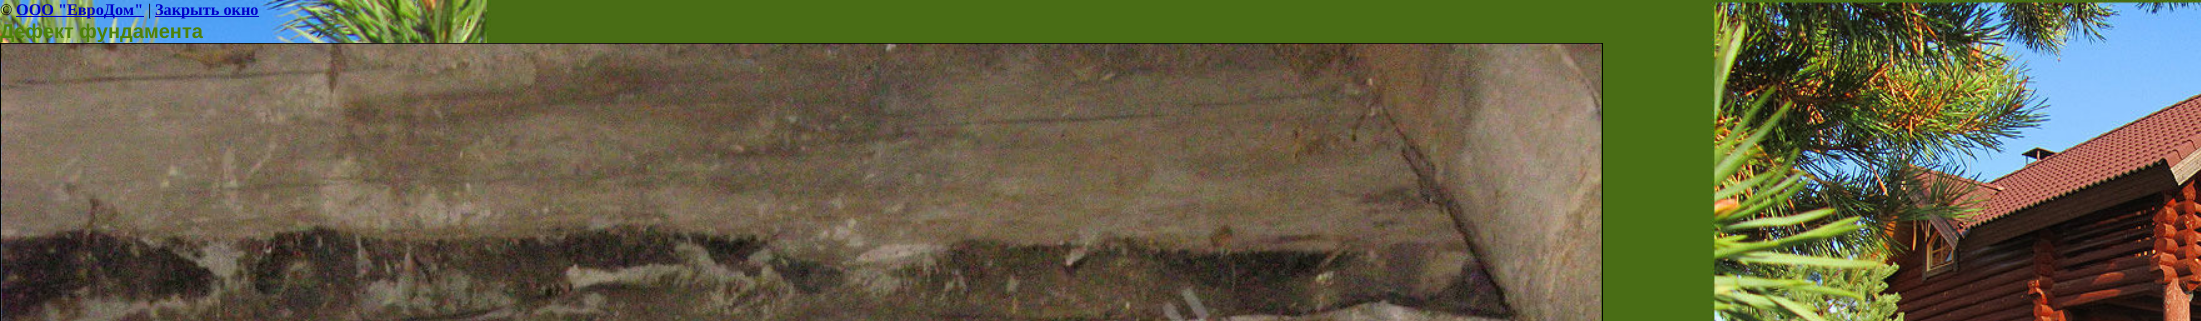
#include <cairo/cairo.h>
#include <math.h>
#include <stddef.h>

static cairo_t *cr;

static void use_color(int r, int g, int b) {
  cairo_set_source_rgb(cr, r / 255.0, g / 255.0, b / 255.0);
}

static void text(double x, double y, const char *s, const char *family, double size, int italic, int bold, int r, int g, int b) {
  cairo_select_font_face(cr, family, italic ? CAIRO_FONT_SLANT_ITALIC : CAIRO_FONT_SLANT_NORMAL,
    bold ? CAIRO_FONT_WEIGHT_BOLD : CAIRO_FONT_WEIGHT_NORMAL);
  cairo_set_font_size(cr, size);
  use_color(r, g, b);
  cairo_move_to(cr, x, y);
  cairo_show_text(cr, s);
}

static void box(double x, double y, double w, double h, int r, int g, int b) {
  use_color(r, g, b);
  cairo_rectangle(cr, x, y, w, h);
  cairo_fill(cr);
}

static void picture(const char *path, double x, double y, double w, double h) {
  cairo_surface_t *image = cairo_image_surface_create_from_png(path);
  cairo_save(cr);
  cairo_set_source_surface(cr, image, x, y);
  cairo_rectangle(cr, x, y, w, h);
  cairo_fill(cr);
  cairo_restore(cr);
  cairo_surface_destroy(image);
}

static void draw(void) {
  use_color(255, 255, 255);
  cairo_paint(cr);
  picture("img_01.png", 0, 0, 2201, 321);
  box(16, 16, 128, 1, 0, 0, 204);
  box(155, 16, 104, 1, 0, 0, 204);
  cairo_rectangle(cr, 0.5, 43.5, 1602, 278);
  use_color(0, 0, 0);
  cairo_set_line_width(cr, 1);
  cairo_stroke(cr);
  picture("img_02.png", 1, 43, 1601, 278);
  text(0, 15, "©", "Liberation Serif", 16.25, 0, 0, 0, 0, 0);
  text(16, 15, "ООО \"ЕвроДом\"", "Liberation Serif", 16.25, 0, 1, 0, 0, 204);
  text(148, 15, "|", "Liberation Serif", 16.25, 0, 0, 0, 0, 0);
  text(155, 15, "Закрыть окно", "Liberation Serif", 16.25, 0, 1, 0, 0, 204);
  text(0, 38, "Дефект фундамента", "Liberation Sans", 20, 0, 1, 77, 130, 8);
}

int main(void) {
  cairo_surface_t *surface = cairo_image_surface_create(CAIRO_FORMAT_RGB24, 2201, 321);
  cr = cairo_create(surface);
  cairo_font_options_t *options = cairo_font_options_create();
  cairo_font_options_set_hint_metrics(options, CAIRO_HINT_METRICS_OFF);
  cairo_font_options_set_hint_style(options, CAIRO_HINT_STYLE_NONE);
  cairo_set_font_options(cr, options);
  cairo_set_miter_limit(cr, 4);
  draw();
  cairo_surface_write_to_png(surface, "out.png");
  cairo_font_options_destroy(options);
  cairo_destroy(cr);
  cairo_surface_destroy(surface);
  return 0;
}
